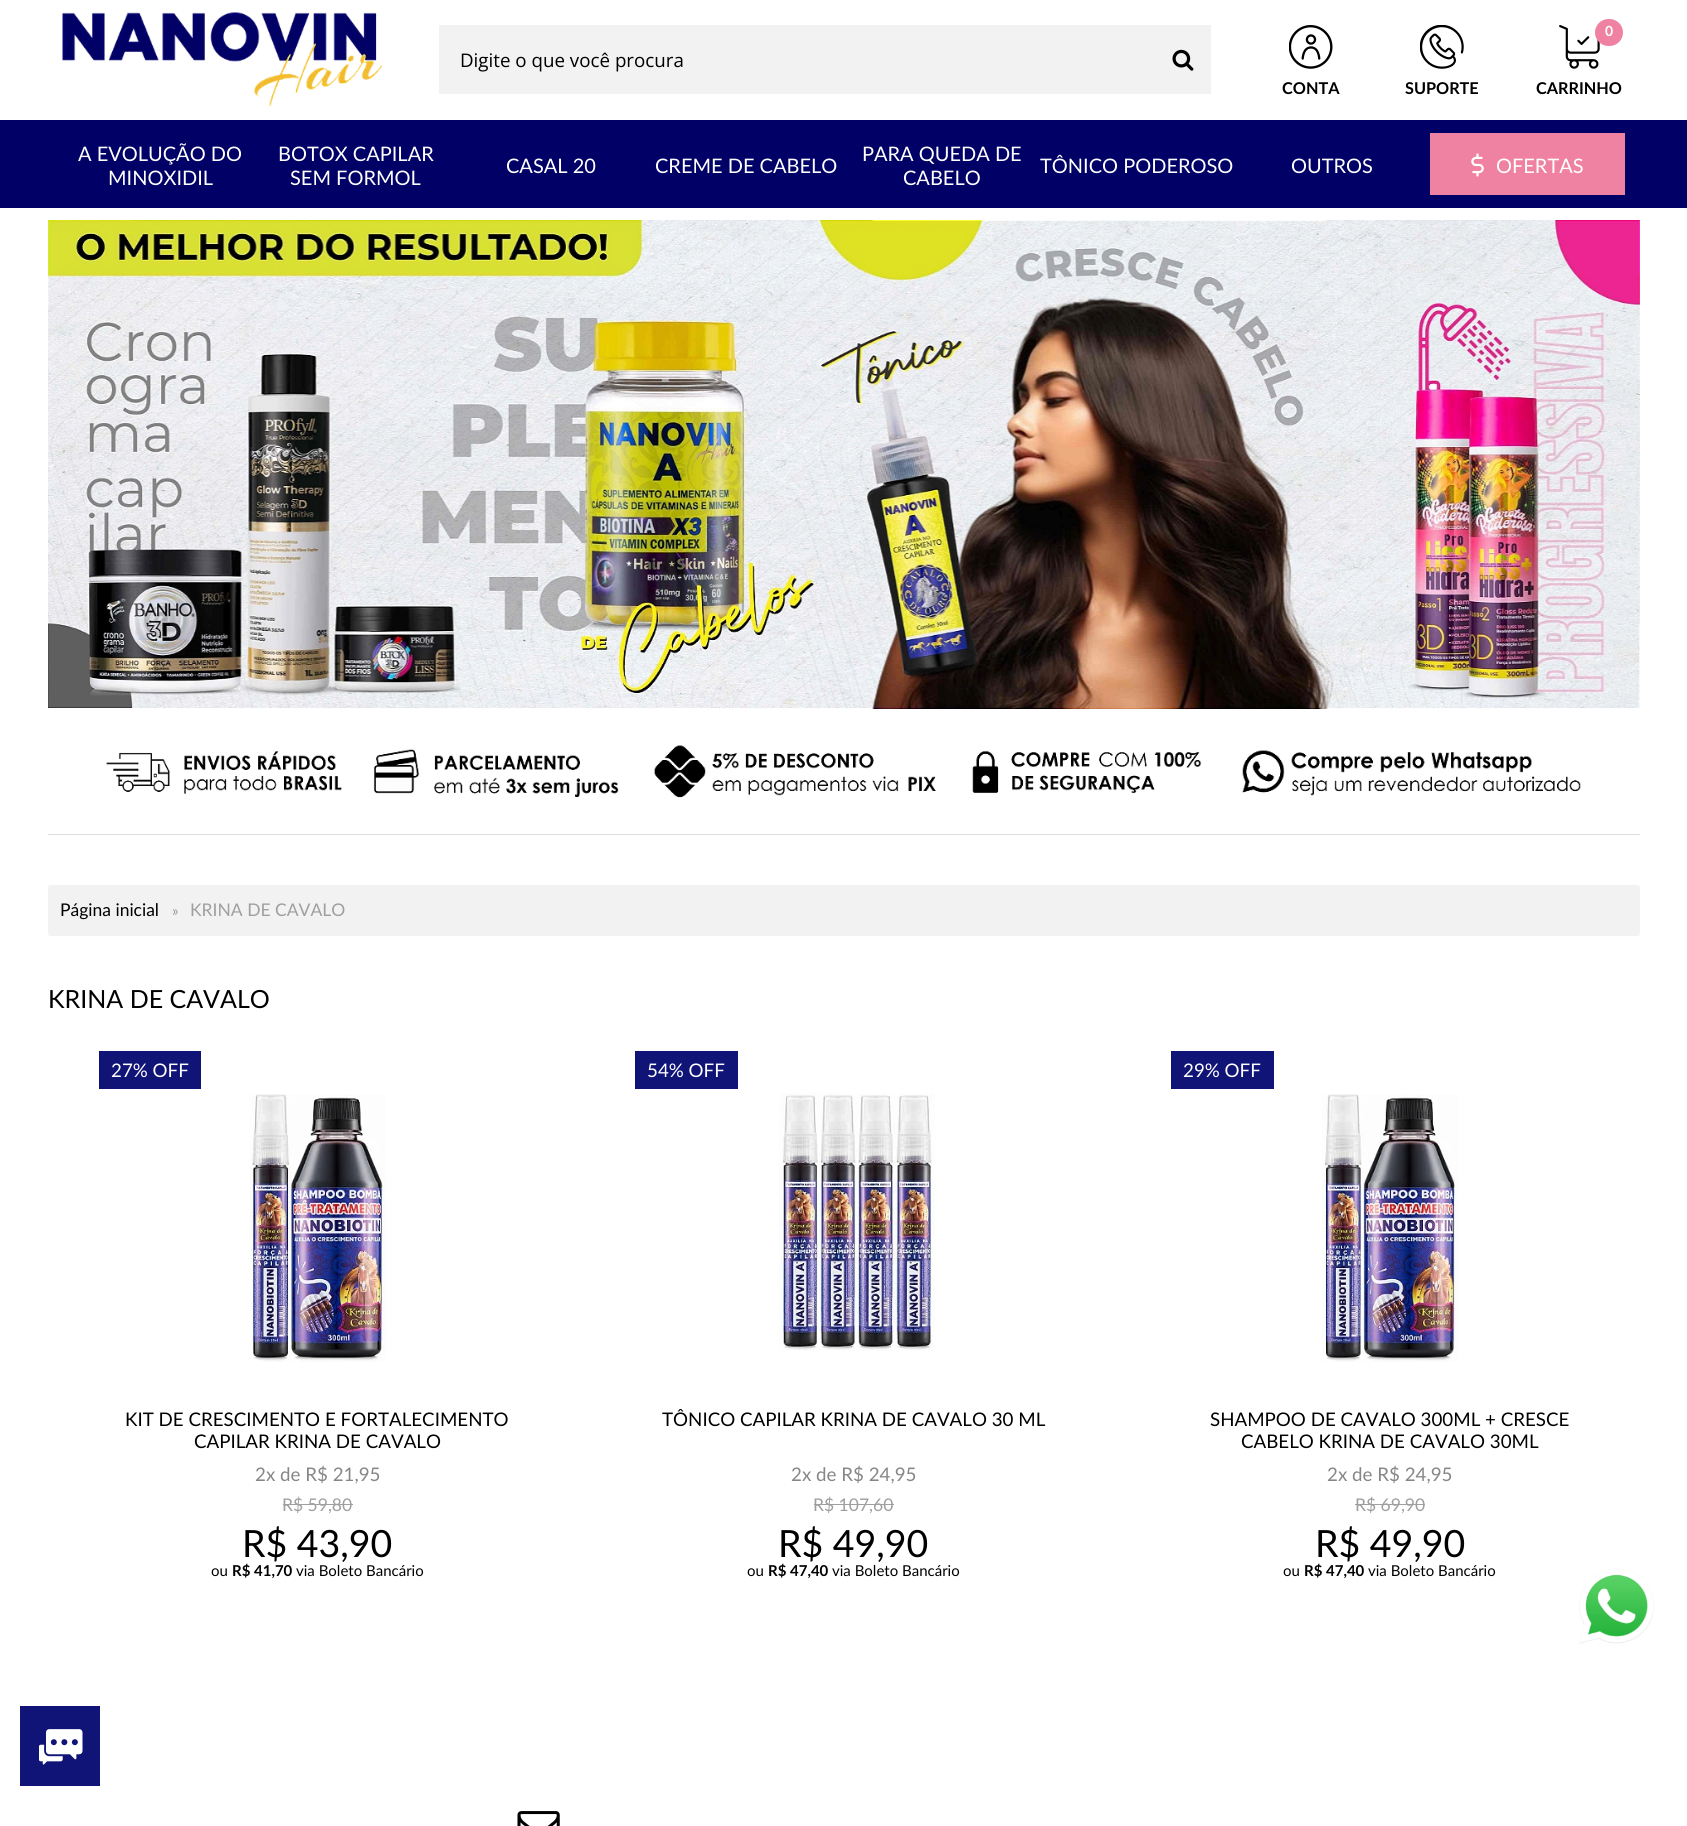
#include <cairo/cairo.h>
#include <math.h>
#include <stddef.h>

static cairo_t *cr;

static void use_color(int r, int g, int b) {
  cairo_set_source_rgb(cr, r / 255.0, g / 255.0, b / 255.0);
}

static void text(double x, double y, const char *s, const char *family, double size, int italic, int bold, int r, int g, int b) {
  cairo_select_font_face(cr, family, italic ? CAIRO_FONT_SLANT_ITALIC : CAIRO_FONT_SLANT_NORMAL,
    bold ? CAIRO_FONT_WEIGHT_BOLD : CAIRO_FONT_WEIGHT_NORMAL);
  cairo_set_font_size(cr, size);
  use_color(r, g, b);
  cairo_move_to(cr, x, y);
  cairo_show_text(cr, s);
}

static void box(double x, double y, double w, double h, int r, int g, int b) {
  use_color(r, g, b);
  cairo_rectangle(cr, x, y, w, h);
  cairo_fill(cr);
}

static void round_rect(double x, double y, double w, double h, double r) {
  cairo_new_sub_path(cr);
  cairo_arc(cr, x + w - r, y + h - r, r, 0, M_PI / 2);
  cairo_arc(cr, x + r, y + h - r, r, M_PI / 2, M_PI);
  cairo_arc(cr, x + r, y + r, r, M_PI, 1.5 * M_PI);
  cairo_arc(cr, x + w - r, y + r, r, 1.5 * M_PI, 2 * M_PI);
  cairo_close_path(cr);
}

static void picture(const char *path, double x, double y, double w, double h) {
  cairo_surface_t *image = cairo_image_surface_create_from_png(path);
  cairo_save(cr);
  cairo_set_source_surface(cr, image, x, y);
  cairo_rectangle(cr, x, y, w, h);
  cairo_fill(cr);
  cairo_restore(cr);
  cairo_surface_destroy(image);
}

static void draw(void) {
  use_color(255, 255, 255);
  cairo_paint(cr);
  picture("img_01.png", 62, 12, 321, 95);
  box(439, 25, 772, 69, 242, 242, 242);
  picture("img_02.png", 1172, 49, 22, 22);
  picture("img_03.png", 1289, 25, 44, 44);
  picture("img_04.png", 1420, 25, 44, 44);
  picture("img_05.png", 1559, 25, 41, 44);
  use_color(239, 130, 163);
  round_rect(1595, 19, 28, 27, 13.5);
  cairo_fill(cr);
  box(0, 120, 1687, 88, 0, 0, 102);
  box(1430, 133, 195, 62, 239, 130, 163);
  picture("img_06.png", 1471, 153, 13, 24);
  picture("img_07.png", 48, 220, 1592, 489);
  box(48, 834, 1592, 1, 221, 221, 221);
  picture("img_08.png", 106, 745, 1475, 53);
  use_color(242, 242, 242);
  round_rect(48, 885, 1592, 51, 2.5);
  cairo_fill(cr);
  box(99, 1051, 102, 38, 16, 20, 119);
  picture("img_09.png", 250, 1094, 136, 268);
  box(283, 1504, 70, 1, 159, 159, 159);
  box(635, 1051, 103, 38, 16, 20, 119);
  picture("img_10.png", 779, 1093, 156, 258);
  box(814, 1504, 80, 1, 159, 159, 159);
  box(1171, 1051, 103, 38, 16, 20, 119);
  picture("img_11.png", 1322, 1094, 137, 268);
  box(1355, 1504, 70, 1, 159, 159, 159);
  picture("img_12.png", 517, 1811, 43, 15);
  picture("img_13.png", 1579, 1569, 75, 75);
  box(20, 1706, 80, 80, 16, 20, 119);
  picture("img_14.png", 39, 1729, 44, 36);
  text(460, 67, "Digite o que você procura", "Open Sans", 18.75, 0, 0, 0, 0, 0);
  text(1282, 94, "CONTA", "Lato", 16.25, 0, 1, 0, 0, 0);
  text(1405, 94, "SUPORTE", "Lato", 16.25, 0, 1, 0, 0, 0);
  text(1605, 36, "0", "Lato", 14, 0, 1, 255, 255, 255);
  text(1536, 94, "CARRINHO", "Lato", 16.25, 0, 1, 0, 0, 0);
  text(78, 161, "A EVOLUÇÃO DO", "Lato", 20, 0, 0, 255, 255, 255);
  text(108, 185, "MINOXIDIL", "Lato", 20, 0, 0, 255, 255, 255);
  text(278, 161, "BOTOX CAPILAR", "Lato", 20, 0, 0, 255, 255, 255);
  text(290, 185, "SEM FORMOL", "Lato", 20, 0, 0, 255, 255, 255);
  text(506, 173, "CASAL 20", "Lato", 20, 0, 0, 255, 255, 255);
  text(655, 173, "CREME DE CABELO", "Lato", 20, 0, 0, 255, 255, 255);
  text(862, 161, "PARA QUEDA DE", "Lato", 20, 0, 0, 255, 255, 255);
  text(903, 185, "CABELO", "Lato", 20, 0, 0, 255, 255, 255);
  text(1040, 173, "TÔNICO PODEROSO", "Lato", 20, 0, 0, 255, 255, 255);
  text(1291, 173, "OUTROS", "Lato", 20, 0, 0, 255, 255, 255);
  text(1496, 173, "OFERTAS", "Lato", 20, 0, 0, 255, 255, 255);
  text(60, 916, "Página inicial", "Lato", 17.5, 0, 0, 0, 0, 0);
  text(172, 916, "»", "Lato", 15, 0, 0, 153, 153, 153);
  text(190, 916, "KRINA DE CAVALO", "Lato", 17.5, 0, 0, 159, 159, 159);
  text(48, 1008, "KRINA DE CAVALO", "Lato", 25, 0, 0, 0, 0, 0);
  text(111, 1077, "27% OFF", "Lato", 18.75, 0, 0, 255, 255, 255);
  text(125, 1426, "KIT DE CRESCIMENTO E FORTALECIMENTO", "Lato", 18.75, 0, 0, 0, 0, 0);
  text(194, 1448, "CAPILAR KRINA DE CAVALO", "Lato", 18.75, 0, 0, 0, 0, 0);
  text(255, 1481, "2x de R$ 21,95", "Lato", 18.75, 0, 0, 134, 134, 134);
  text(282, 1511, "R$ 59,80", "Lato", 17.5, 0, 0, 159, 159, 159);
  text(242, 1557, "R$ 43,90", "Lato", 37.5, 0, 0, 0, 0, 0);
  text(211, 1576, "ou", "Lato", 15, 0, 0, 0, 0, 0);
  text(232, 1576, "R$ 41,70", "Lato", 15, 0, 1, 0, 0, 0);
  text(296, 1576, "via Boleto Bancário", "Lato", 15, 0, 0, 0, 0, 0);
  text(647, 1077, "54% OFF", "Lato", 18.75, 0, 0, 255, 255, 255);
  text(662, 1426, "TÔNICO CAPILAR KRINA DE CAVALO 30 ML", "Lato", 18.75, 0, 0, 0, 0, 0);
  text(791, 1481, "2x de R$ 24,95", "Lato", 18.75, 0, 0, 134, 134, 134);
  text(813, 1511, "R$ 107,60", "Lato", 17.5, 0, 0, 159, 159, 159);
  text(778, 1557, "R$ 49,90", "Lato", 37.5, 0, 0, 0, 0, 0);
  text(747, 1576, "ou", "Lato", 15, 0, 0, 0, 0, 0);
  text(768, 1576, "R$ 47,40", "Lato", 15, 0, 1, 0, 0, 0);
  text(832, 1576, "via Boleto Bancário", "Lato", 15, 0, 0, 0, 0, 0);
  text(1183, 1077, "29% OFF", "Lato", 18.75, 0, 0, 255, 255, 255);
  text(1210, 1426, "SHAMPOO DE CAVALO 300ML + CRESCE", "Lato", 18.75, 0, 0, 0, 0, 0);
  text(1241, 1448, "CABELO KRINA DE CAVALO 30ML", "Lato", 18.75, 0, 0, 0, 0, 0);
  text(1327, 1481, "2x de R$ 24,95", "Lato", 18.75, 0, 0, 134, 134, 134);
  text(1355, 1511, "R$ 69,90", "Lato", 17.5, 0, 0, 159, 159, 159);
  text(1315, 1557, "R$ 49,90", "Lato", 37.5, 0, 0, 0, 0, 0);
  text(1283, 1576, "ou", "Lato", 15, 0, 0, 0, 0, 0);
  text(1304, 1576, "R$ 47,40", "Lato", 15, 0, 1, 0, 0, 0);
  text(1368, 1576, "via Boleto Bancário", "Lato", 15, 0, 0, 0, 0, 0);
}

int main(void) {
  cairo_surface_t *surface = cairo_image_surface_create(CAIRO_FORMAT_RGB24, 1687, 1826);
  cr = cairo_create(surface);
  cairo_font_options_t *options = cairo_font_options_create();
  cairo_font_options_set_hint_metrics(options, CAIRO_HINT_METRICS_OFF);
  cairo_font_options_set_hint_style(options, CAIRO_HINT_STYLE_NONE);
  cairo_set_font_options(cr, options);
  cairo_set_miter_limit(cr, 4);
  draw();
  cairo_surface_write_to_png(surface, "out.png");
  cairo_font_options_destroy(options);
  cairo_destroy(cr);
  cairo_surface_destroy(surface);
  return 0;
}
